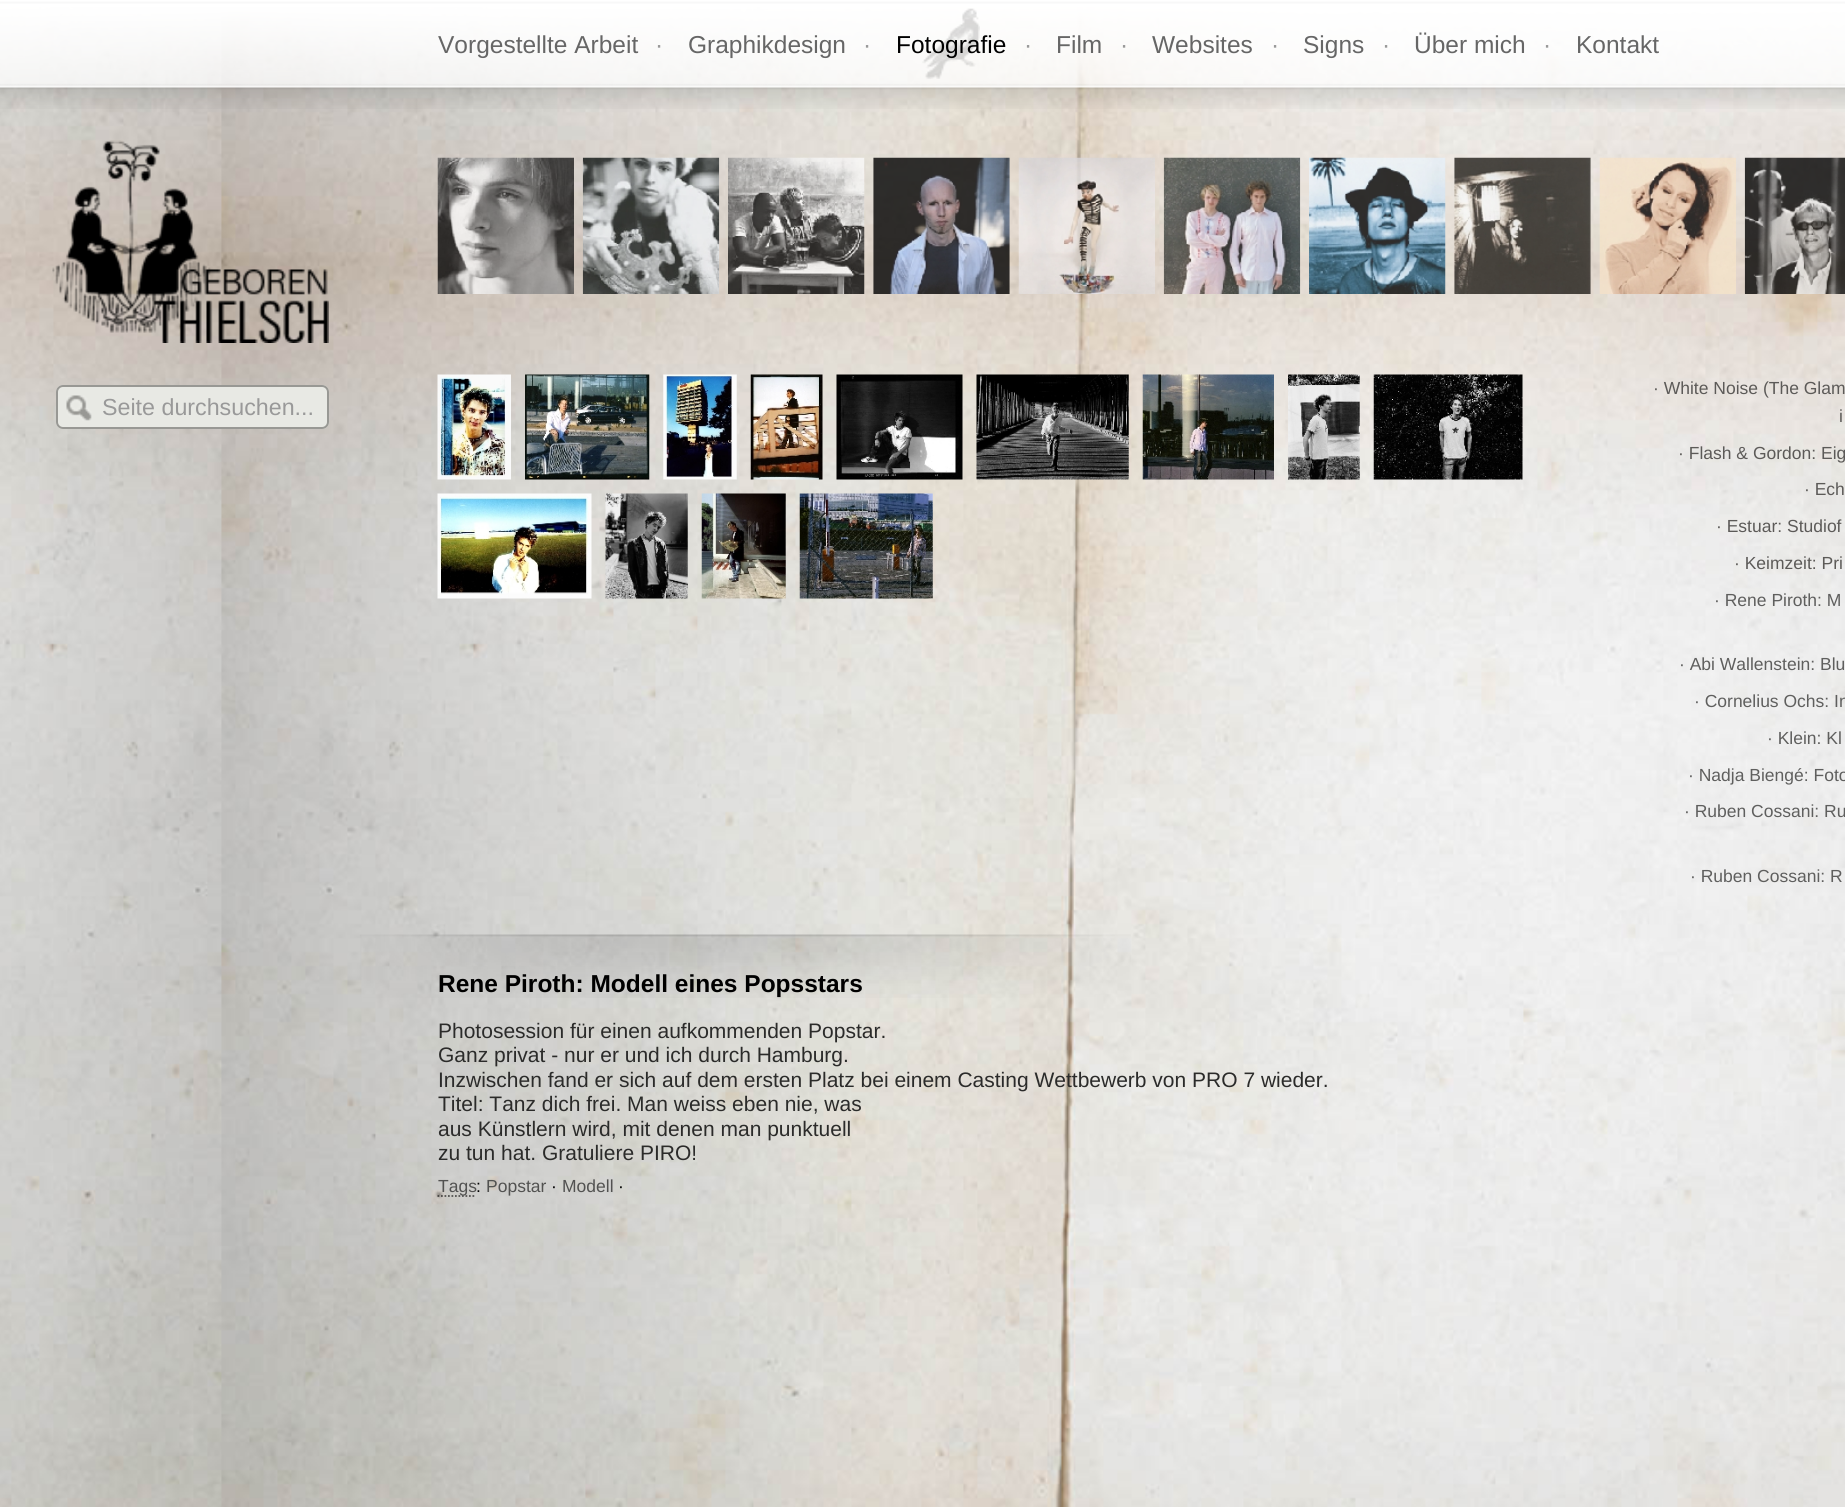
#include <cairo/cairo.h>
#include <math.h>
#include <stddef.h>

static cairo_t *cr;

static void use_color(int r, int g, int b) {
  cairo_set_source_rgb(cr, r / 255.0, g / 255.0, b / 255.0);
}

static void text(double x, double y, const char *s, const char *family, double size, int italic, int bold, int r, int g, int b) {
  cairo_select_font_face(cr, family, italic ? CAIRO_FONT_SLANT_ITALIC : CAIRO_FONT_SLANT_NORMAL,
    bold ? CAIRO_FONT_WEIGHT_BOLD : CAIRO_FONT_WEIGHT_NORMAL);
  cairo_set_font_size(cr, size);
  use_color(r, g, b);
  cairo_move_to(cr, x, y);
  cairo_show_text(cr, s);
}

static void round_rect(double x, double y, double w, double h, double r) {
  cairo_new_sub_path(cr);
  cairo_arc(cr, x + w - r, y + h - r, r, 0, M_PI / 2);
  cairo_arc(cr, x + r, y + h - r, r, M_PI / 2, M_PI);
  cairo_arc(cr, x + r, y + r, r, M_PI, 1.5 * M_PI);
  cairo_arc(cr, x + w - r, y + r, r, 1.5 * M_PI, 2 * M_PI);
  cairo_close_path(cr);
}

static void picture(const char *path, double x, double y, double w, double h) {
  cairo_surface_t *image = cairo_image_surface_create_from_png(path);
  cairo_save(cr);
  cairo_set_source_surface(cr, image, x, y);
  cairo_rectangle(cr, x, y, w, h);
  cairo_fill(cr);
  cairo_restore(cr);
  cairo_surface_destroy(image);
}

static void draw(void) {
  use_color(255, 255, 255);
  cairo_paint(cr);
  picture("img_01.png", 0, 7, 1845, 1500);
  picture("img_02.png", 0, 0, 1845, 109);
  picture("img_03.png", 922, 8, 58, 71);
  picture("img_04.png", 52, 140, 277, 203);
  use_color(232, 233, 228);
  round_rect(56, 385, 273, 44, 7);
  cairo_fill(cr);
  picture("img_05.png", 66, 395, 26, 26);
  round_rect(57, 386, 271, 42, 6);
  use_color(152, 152, 148);
  cairo_stroke(cr);
  picture("img_06.png", 437, 157, 137, 137);
  picture("img_07.png", 582, 157, 138, 137);
  picture("img_08.png", 728, 157, 137, 137);
  picture("img_09.png", 873, 157, 137, 137);
  picture("img_10.png", 1018, 157, 137, 137);
  picture("img_11.png", 1163, 157, 138, 137);
  picture("img_12.png", 1309, 157, 137, 137);
  picture("img_13.png", 1454, 157, 137, 137);
  picture("img_14.png", 1599, 157, 137, 137);
  picture("img_15.png", 1744, 157, 101, 137);
  picture("img_16.png", 437, 374, 74, 106);
  picture("img_17.png", 525, 374, 125, 106);
  picture("img_18.png", 663, 374, 74, 106);
  picture("img_19.png", 750, 374, 73, 106);
  picture("img_20.png", 836, 374, 127, 106);
  picture("img_21.png", 976, 374, 153, 106);
  picture("img_22.png", 1142, 374, 132, 106);
  picture("img_23.png", 1288, 374, 72, 106);
  picture("img_24.png", 1373, 374, 150, 106);
  picture("img_25.png", 437, 493, 155, 106);
  picture("img_26.png", 605, 493, 83, 106);
  picture("img_27.png", 701, 493, 85, 106);
  picture("img_28.png", 799, 493, 134, 106);
  picture("img_29.png", 360, 934, 771, 64);
  cairo_new_path(cr);
  cairo_move_to(cr, 437.5, 1196);
  cairo_line_to(cr, 476, 1196);
  cairo_set_source_rgba(cr, 0, 0, 0, 0.6);
  cairo_set_line_width(cr, 1.8);
  cairo_set_dash(cr, (double[]){1.75, 1.75}, 2, 0);
  cairo_stroke(cr);
  text(438, 53, "Vorgestellte Arbeit", "Liberation Sans", 24.5, 0, 0, 102, 102, 102);
  text(655, 53, "·", "Liberation Sans", 24.5, 0, 0, 153, 153, 153);
  text(688, 53, "Graphikdesign", "Liberation Sans", 24.5, 0, 0, 102, 102, 102);
  text(863, 53, "·", "Liberation Sans", 24.5, 0, 0, 153, 153, 153);
  text(896, 53, "Fotografie", "Liberation Sans", 24.5, 0, 0, 0, 0, 0);
  text(1024, 53, "·", "Liberation Sans", 24.5, 0, 0, 153, 153, 153);
  text(1056, 53, "Film", "Liberation Sans", 24.5, 0, 0, 102, 102, 102);
  text(1120, 53, "·", "Liberation Sans", 24.5, 0, 0, 153, 153, 153);
  text(1152, 53, "Websites", "Liberation Sans", 24.5, 0, 0, 102, 102, 102);
  text(1271, 53, "·", "Liberation Sans", 24.5, 0, 0, 153, 153, 153);
  text(1303, 53, "Signs", "Liberation Sans", 24.5, 0, 0, 102, 102, 102);
  text(1382, 53, "·", "Liberation Sans", 24.5, 0, 0, 153, 153, 153);
  text(1414, 53, "Über mich", "Liberation Sans", 24.5, 0, 0, 102, 102, 102);
  text(1543, 53, "·", "Liberation Sans", 24.5, 0, 0, 153, 153, 153);
  text(1576, 53, "Kontakt", "Liberation Sans", 24.5, 0, 0, 102, 102, 102);
  text(102, 415, "Seite durchsuchen...", "Liberation Sans", 23.25, 0, 0, 153, 153, 153);
  text(1653, 394, "· White Noise (The Glam", "Liberation Sans", 17.5, 0, 0, 92, 90, 88);
  text(1839, 422, "i", "Liberation Sans", 17.5, 0, 0, 92, 90, 88);
  text(1678, 459, "· Flash & Gordon: Eig", "Liberation Sans", 17.5, 0, 0, 92, 90, 88);
  text(1804, 495, "· Ech", "Liberation Sans", 17.5, 0, 0, 92, 90, 88);
  text(1716, 532, "· Estuar: Studiof", "Liberation Sans", 17.5, 0, 0, 92, 90, 88);
  text(1734, 569, "· Keimzeit: Pri", "Liberation Sans", 17.5, 0, 0, 92, 90, 88);
  text(1714, 606, "· Rene Piroth: M", "Liberation Sans", 17.5, 0, 0, 95, 95, 94);
  text(1679, 670, "· Abi Wallenstein: Blu", "Liberation Sans", 17.5, 0, 0, 95, 95, 94);
  text(1694, 707, "· Cornelius Ochs: In", "Liberation Sans", 17.5, 0, 0, 95, 95, 94);
  text(1767, 744, "· Klein: Kl", "Liberation Sans", 17.5, 0, 0, 95, 95, 94);
  text(1688, 781, "· Nadja Biengé: Foto", "Liberation Sans", 17.5, 0, 0, 95, 95, 94);
  text(1684, 817, "· Ruben Cossani: Ru", "Liberation Sans", 17.5, 0, 0, 95, 95, 94);
  text(1690, 882, "· Ruben Cossani: R", "Liberation Sans", 17.5, 0, 0, 95, 95, 94);
  text(438, 992, "Rene Piroth: Modell eines Popsstars", "Liberation Sans", 24.5, 0, 1, 0, 0, 0);
  text(438, 1038, "Photosession für einen aufkommenden Popstar.", "Liberation Sans", 21, 0, 0, 43, 43, 42);
  text(438, 1062, "Ganz privat - nur er und ich durch Hamburg.", "Liberation Sans", 21, 0, 0, 43, 43, 42);
  text(438, 1087, "Inzwischen fand er sich auf dem ersten Platz bei einem Casting Wettbewerb von PRO 7 wieder.", "Liberation Sans", 21, 0, 0, 43, 43, 42);
  text(438, 1111, "Titel: Tanz dich frei. Man weiss eben nie, was", "Liberation Sans", 21, 0, 0, 43, 43, 42);
  text(438, 1136, "aus Künstlern wird, mit denen man punktuell", "Liberation Sans", 21, 0, 0, 43, 43, 42);
  text(438, 1160, "zu tun hat. Gratuliere PIRO!", "Liberation Sans", 21, 0, 0, 43, 43, 42);
  text(438, 1192, "Tags", "Liberation Sans", 17.5, 0, 0, 82, 82, 81);
  text(476, 1192, ":", "Liberation Sans", 17.5, 0, 0, 0, 0, 0);
  text(486, 1192, "Popstar", "Liberation Sans", 17.5, 0, 0, 82, 82, 81);
  text(551, 1192, "·", "Liberation Sans", 17.5, 0, 0, 0, 0, 0);
  text(562, 1192, "Modell", "Liberation Sans", 17.5, 0, 0, 82, 82, 81);
  text(618, 1192, "·", "Liberation Sans", 17.5, 0, 0, 0, 0, 0);
}

int main(void) {
  cairo_surface_t *surface = cairo_image_surface_create(CAIRO_FORMAT_RGB24, 1845, 1507);
  cr = cairo_create(surface);
  cairo_font_options_t *options = cairo_font_options_create();
  cairo_font_options_set_hint_metrics(options, CAIRO_HINT_METRICS_OFF);
  cairo_font_options_set_hint_style(options, CAIRO_HINT_STYLE_NONE);
  cairo_set_font_options(cr, options);
  cairo_set_miter_limit(cr, 4);
  draw();
  cairo_surface_write_to_png(surface, "out.png");
  cairo_font_options_destroy(options);
  cairo_destroy(cr);
  cairo_surface_destroy(surface);
  return 0;
}
